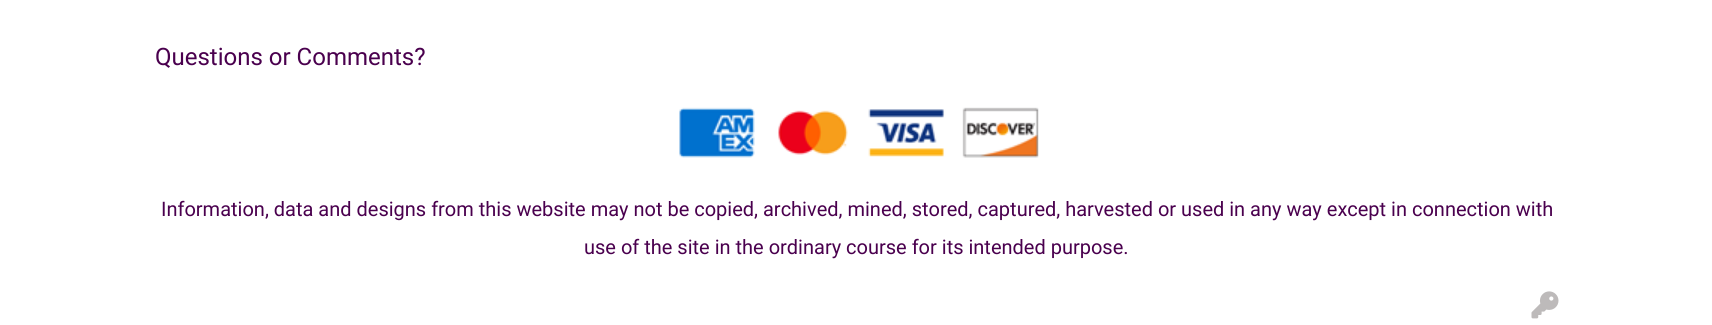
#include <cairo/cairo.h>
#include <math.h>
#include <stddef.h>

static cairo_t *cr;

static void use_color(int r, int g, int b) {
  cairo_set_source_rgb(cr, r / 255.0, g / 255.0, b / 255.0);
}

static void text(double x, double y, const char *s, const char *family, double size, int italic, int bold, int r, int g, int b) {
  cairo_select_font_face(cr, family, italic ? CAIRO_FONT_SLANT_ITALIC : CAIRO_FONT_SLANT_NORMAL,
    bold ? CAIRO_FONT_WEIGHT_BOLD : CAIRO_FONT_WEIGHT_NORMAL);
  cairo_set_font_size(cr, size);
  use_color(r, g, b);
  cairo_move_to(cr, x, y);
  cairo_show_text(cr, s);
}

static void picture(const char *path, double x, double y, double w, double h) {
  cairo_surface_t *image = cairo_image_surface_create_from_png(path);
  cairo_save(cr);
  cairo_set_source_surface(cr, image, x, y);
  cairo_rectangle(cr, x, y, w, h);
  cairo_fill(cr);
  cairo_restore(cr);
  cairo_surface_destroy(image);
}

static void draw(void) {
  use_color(255, 255, 255);
  cairo_paint(cr);
  picture("img_01.png", 679, 107, 360, 51);
  picture("img_02.png", 1531, 291, 28, 28);
  text(155, 65, "Questions or Comments?", "Roboto", 24, 0, 0, 74, 0, 78);
  text(161, 216, "Information, data and designs from this website may not be copied, archived, mined, stored, captured, harvested or used in any way except in connection with", "Roboto", 20, 0, 0, 74, 0, 78);
  text(584, 254, "use of the site in the ordinary course for its intended purpose.", "Roboto", 20, 0, 0, 74, 0, 78);
}

int main(void) {
  cairo_surface_t *surface = cairo_image_surface_create(CAIRO_FORMAT_RGB24, 1712, 325);
  cr = cairo_create(surface);
  cairo_font_options_t *options = cairo_font_options_create();
  cairo_font_options_set_hint_metrics(options, CAIRO_HINT_METRICS_OFF);
  cairo_font_options_set_hint_style(options, CAIRO_HINT_STYLE_NONE);
  cairo_set_font_options(cr, options);
  cairo_set_miter_limit(cr, 4);
  draw();
  cairo_surface_write_to_png(surface, "out.png");
  cairo_font_options_destroy(options);
  cairo_destroy(cr);
  cairo_surface_destroy(surface);
  return 0;
}
